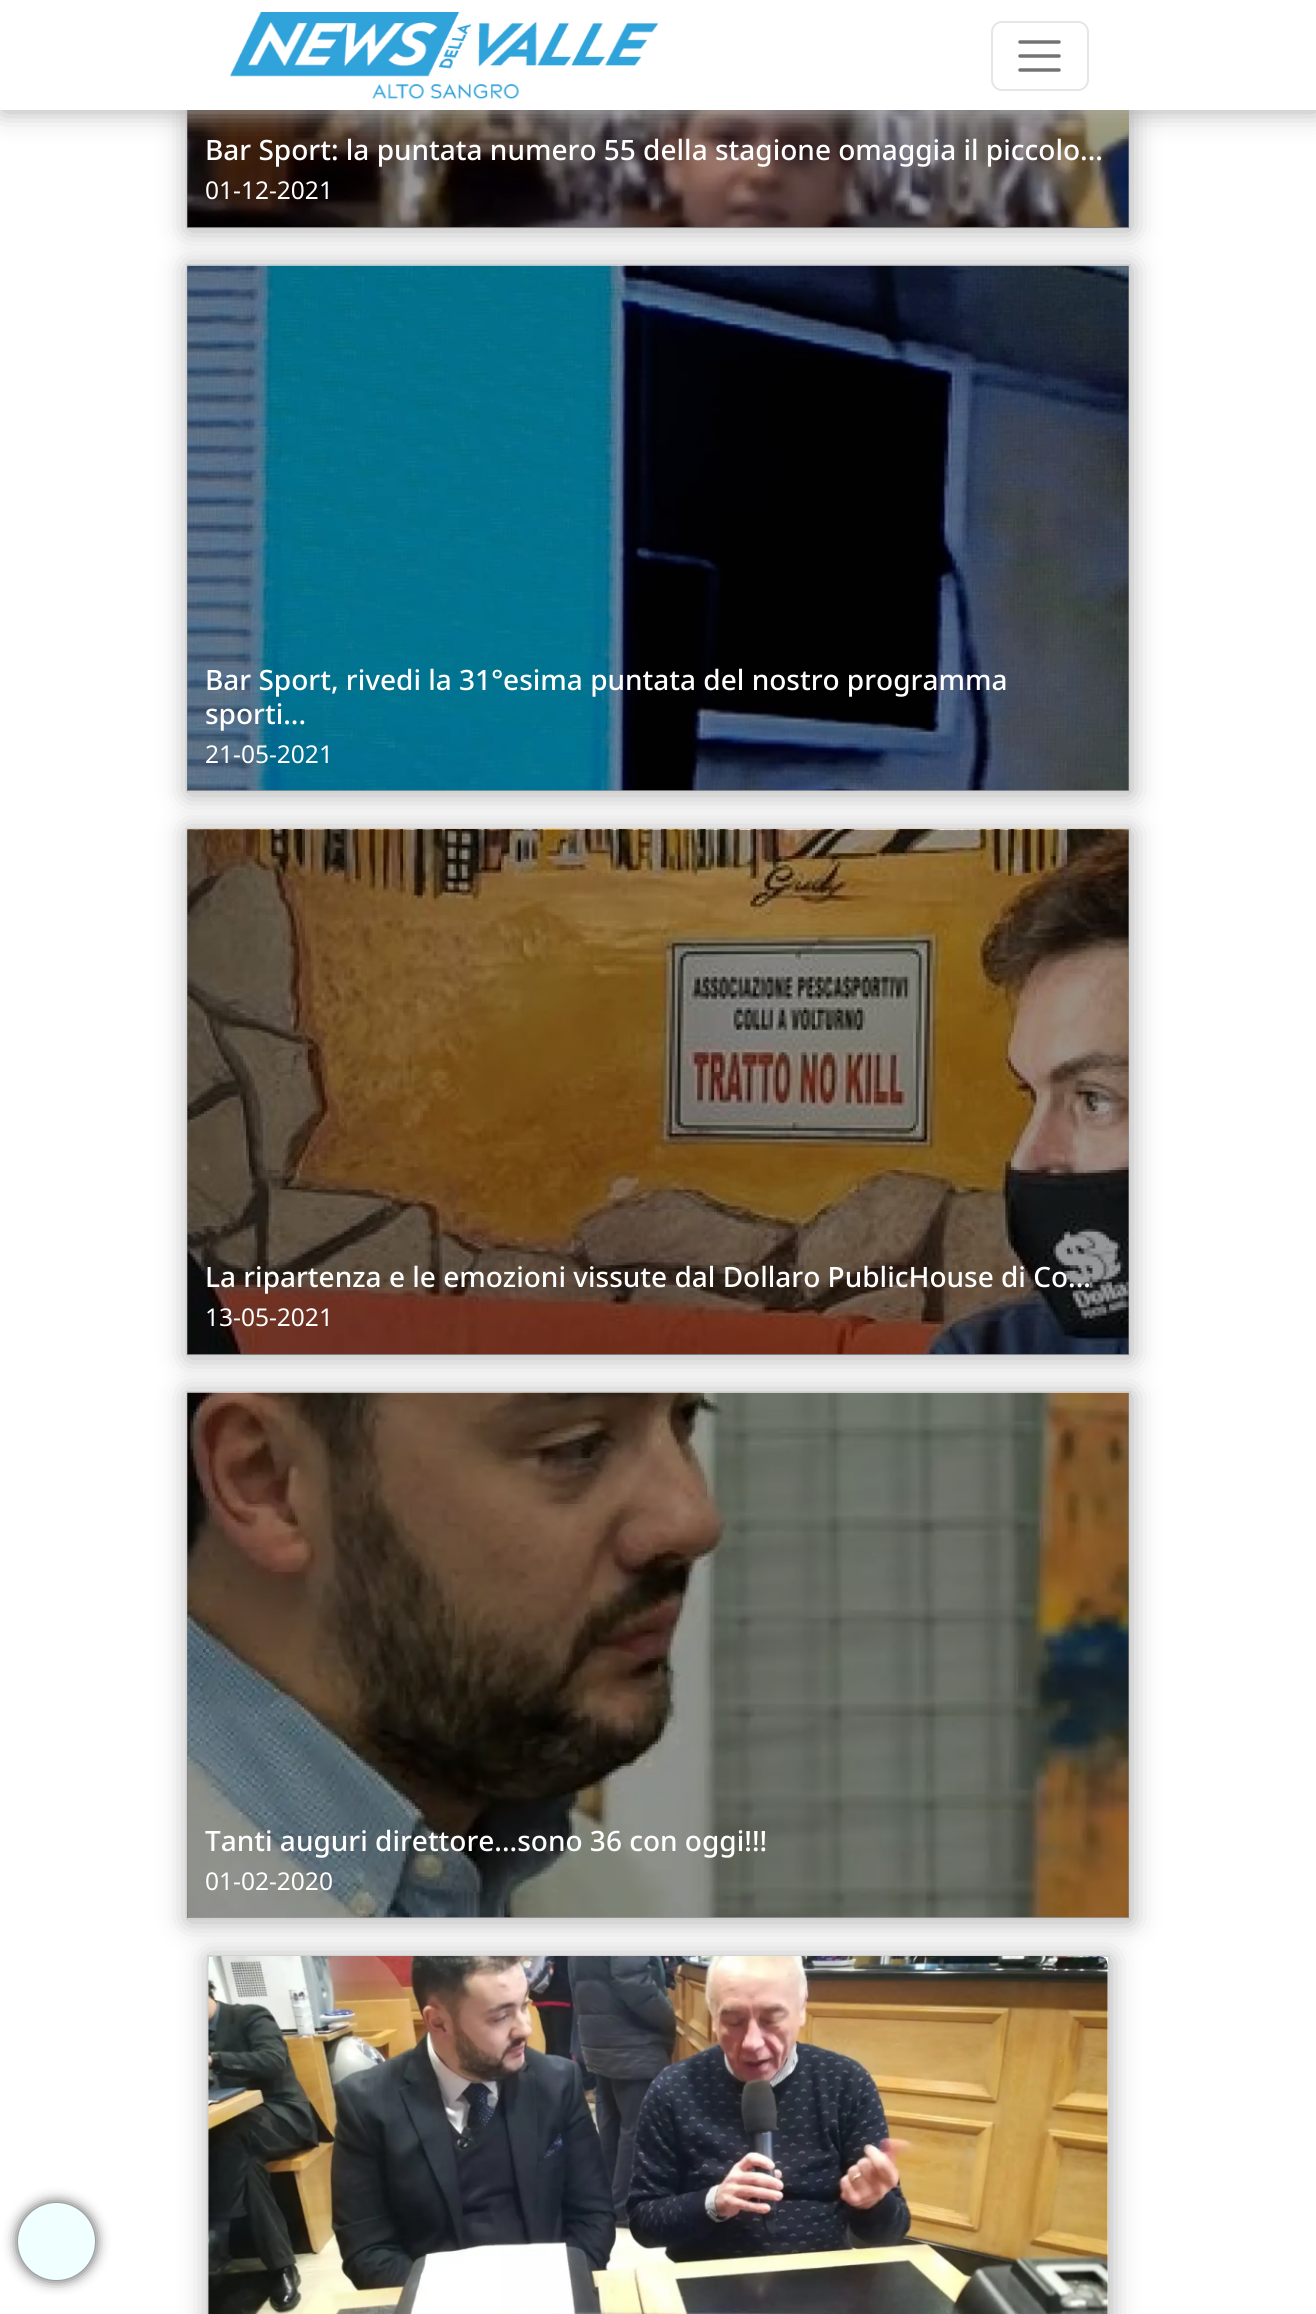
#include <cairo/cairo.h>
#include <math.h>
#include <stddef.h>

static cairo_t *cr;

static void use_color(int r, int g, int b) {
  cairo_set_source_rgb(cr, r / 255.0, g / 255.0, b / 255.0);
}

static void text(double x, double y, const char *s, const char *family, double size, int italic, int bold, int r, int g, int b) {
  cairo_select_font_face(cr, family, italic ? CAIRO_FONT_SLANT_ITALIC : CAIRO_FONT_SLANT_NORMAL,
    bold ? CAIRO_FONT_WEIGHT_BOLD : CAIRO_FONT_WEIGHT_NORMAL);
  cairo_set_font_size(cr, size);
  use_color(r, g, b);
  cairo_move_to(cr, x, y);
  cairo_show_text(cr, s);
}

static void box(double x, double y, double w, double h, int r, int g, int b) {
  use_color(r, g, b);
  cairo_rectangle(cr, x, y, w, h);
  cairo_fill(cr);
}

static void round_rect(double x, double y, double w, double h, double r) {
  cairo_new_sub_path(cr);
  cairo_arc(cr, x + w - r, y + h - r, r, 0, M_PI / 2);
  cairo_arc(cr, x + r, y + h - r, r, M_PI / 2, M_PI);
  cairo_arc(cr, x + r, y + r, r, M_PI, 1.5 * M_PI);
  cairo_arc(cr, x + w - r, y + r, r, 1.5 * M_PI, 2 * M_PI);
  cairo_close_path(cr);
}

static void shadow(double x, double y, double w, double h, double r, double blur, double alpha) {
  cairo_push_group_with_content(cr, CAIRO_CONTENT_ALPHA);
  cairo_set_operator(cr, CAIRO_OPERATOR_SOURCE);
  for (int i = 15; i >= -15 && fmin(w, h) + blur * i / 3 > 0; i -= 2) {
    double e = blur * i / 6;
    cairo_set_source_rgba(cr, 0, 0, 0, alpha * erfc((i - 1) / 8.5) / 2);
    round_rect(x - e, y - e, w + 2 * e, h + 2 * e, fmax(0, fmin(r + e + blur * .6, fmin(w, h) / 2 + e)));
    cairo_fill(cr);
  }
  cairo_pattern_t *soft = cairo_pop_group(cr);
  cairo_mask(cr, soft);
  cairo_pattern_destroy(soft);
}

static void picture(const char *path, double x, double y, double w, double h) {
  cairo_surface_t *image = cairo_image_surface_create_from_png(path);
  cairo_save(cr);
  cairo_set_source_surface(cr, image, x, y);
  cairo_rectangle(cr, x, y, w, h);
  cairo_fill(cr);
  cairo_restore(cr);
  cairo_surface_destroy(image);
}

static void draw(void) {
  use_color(255, 255, 255);
  cairo_paint(cr);
  use_color(175, 175, 175);
  shadow(187, -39, 945, 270, 0, 13, 1);
  box(1128, 110, 1, 117, 255, 255, 255);
  cairo_rectangle(cr, 187, -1, 943, 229);
  use_color(210, 210, 210);
  cairo_stroke(cr);
  picture("img_02.png", 187, 110, 942, 117);
  cairo_set_source_rgba(cr, 0, 0, 0, 0.4);
  cairo_rectangle(cr, 187, 110, 942, 118);
  cairo_fill(cr);
  use_color(175, 175, 175);
  shadow(2, 2, 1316, 110, 0, 13, 1);
  box(0, 0, 1316, 110, 255, 255, 255);
  picture("img_01.png", 230, 12, 428, 87);
  round_rect(992, 22, 96, 68, 10);
  use_color(230, 230, 230);
  cairo_stroke(cr);
  cairo_new_path(cr);
  cairo_move_to(cr, 1020, 42);
  cairo_line_to(cr, 1059, 42);
  cairo_move_to(cr, 1020, 56);
  cairo_line_to(cr, 1059, 56);
  cairo_move_to(cr, 1020, 70);
  cairo_line_to(cr, 1059, 70);
  use_color(115, 115, 115);
  cairo_set_line_width(cr, 3.5);
  cairo_set_line_cap(cr, CAIRO_LINE_CAP_ROUND);
  cairo_stroke(cr);
  use_color(175, 175, 175);
  shadow(187, 266, 945, 529, 0, 13, 1);
  use_color(255, 255, 255);
  cairo_rectangle(cr, 187, 265, 943, 527);
  cairo_fill_preserve(cr);
  use_color(210, 210, 210);
  cairo_set_line_width(cr, 2);
  cairo_set_line_cap(cr, CAIRO_LINE_CAP_BUTT);
  cairo_stroke(cr);
  picture("img_03.png", 187, 265, 942, 526);
  cairo_set_source_rgba(cr, 0, 0, 0, 0.4);
  cairo_rectangle(cr, 187, 266, 942, 525);
  cairo_fill(cr);
  use_color(175, 175, 175);
  shadow(187, 830, 945, 528, 0, 13, 1);
  box(1128, 830, 1, 524, 255, 255, 255);
  cairo_rectangle(cr, 187, 829, 943, 526);
  use_color(210, 210, 210);
  cairo_stroke(cr);
  picture("img_04.png", 187, 829, 942, 525);
  cairo_set_source_rgba(cr, 0, 0, 0, 0.4);
  cairo_rectangle(cr, 187, 830, 942, 525);
  cairo_fill(cr);
  use_color(175, 175, 175);
  shadow(187, 1393, 945, 529, 0, 13, 1);
  use_color(255, 255, 255);
  cairo_rectangle(cr, 187, 1392, 943, 527);
  cairo_fill_preserve(cr);
  use_color(210, 210, 210);
  cairo_stroke(cr);
  picture("img_05.png", 187, 1392, 942, 526);
  cairo_set_source_rgba(cr, 0, 0, 0, 0.4);
  cairo_rectangle(cr, 187, 1393, 942, 525);
  cairo_fill(cr);
  use_color(175, 175, 175);
  shadow(208, 1957, 903, 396, 0, 13, 1);
  use_color(255, 255, 255);
  cairo_rectangle(cr, 208, 1956, 901, 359);
  cairo_fill_preserve(cr);
  use_color(210, 210, 210);
  cairo_stroke(cr);
  picture("img_06.png", 208, 1956, 900, 358);
  use_color(0, 0, 0);
  shadow(18, 2203, 77, 77, 38.5, 7, 0.75);
  use_color(240, 255, 255);
  cairo_arc(cr, 56.5, 2241.5, 38.5, 0, 2 * M_PI);
  cairo_fill(cr);
  text(205, 160, "Bar Sport: la puntata numero 55 della stagione omaggia il piccolo...", "Noto Sans Medium", 28, 0, 0, 255, 255, 255);
  text(205, 199, "01-12-2021", "Noto Sans", 24.5, 0, 0, 255, 255, 255);
  text(205, 690, "Bar Sport, rivedi la 31°esima puntata del nostro programma", "Noto Sans Medium", 28, 0, 0, 255, 255, 255);
  text(205, 724, "sporti...", "Noto Sans Medium", 28, 0, 0, 255, 255, 255);
  text(205, 763, "21-05-2021", "Noto Sans", 24.5, 0, 0, 255, 255, 255);
  text(205, 1287, "La ripartenza e le emozioni vissute dal Dollaro PublicHouse di Co...", "Noto Sans Medium", 28, 0, 0, 255, 255, 255);
  text(205, 1326, "13-05-2021", "Noto Sans", 24.5, 0, 0, 255, 255, 255);
  text(205, 1851, "Tanti auguri direttore...sono 36 con oggi!!!", "Noto Sans Medium", 28, 0, 0, 255, 255, 255);
  text(205, 1890, "01-02-2020", "Noto Sans", 24.5, 0, 0, 255, 255, 255);
}

int main(void) {
  cairo_surface_t *surface = cairo_image_surface_create(CAIRO_FORMAT_RGB24, 1316, 2314);
  cr = cairo_create(surface);
  cairo_font_options_t *options = cairo_font_options_create();
  cairo_font_options_set_hint_metrics(options, CAIRO_HINT_METRICS_OFF);
  cairo_font_options_set_hint_style(options, CAIRO_HINT_STYLE_NONE);
  cairo_set_font_options(cr, options);
  cairo_set_miter_limit(cr, 4);
  draw();
  cairo_surface_write_to_png(surface, "out.png");
  cairo_font_options_destroy(options);
  cairo_destroy(cr);
  cairo_surface_destroy(surface);
  return 0;
}
